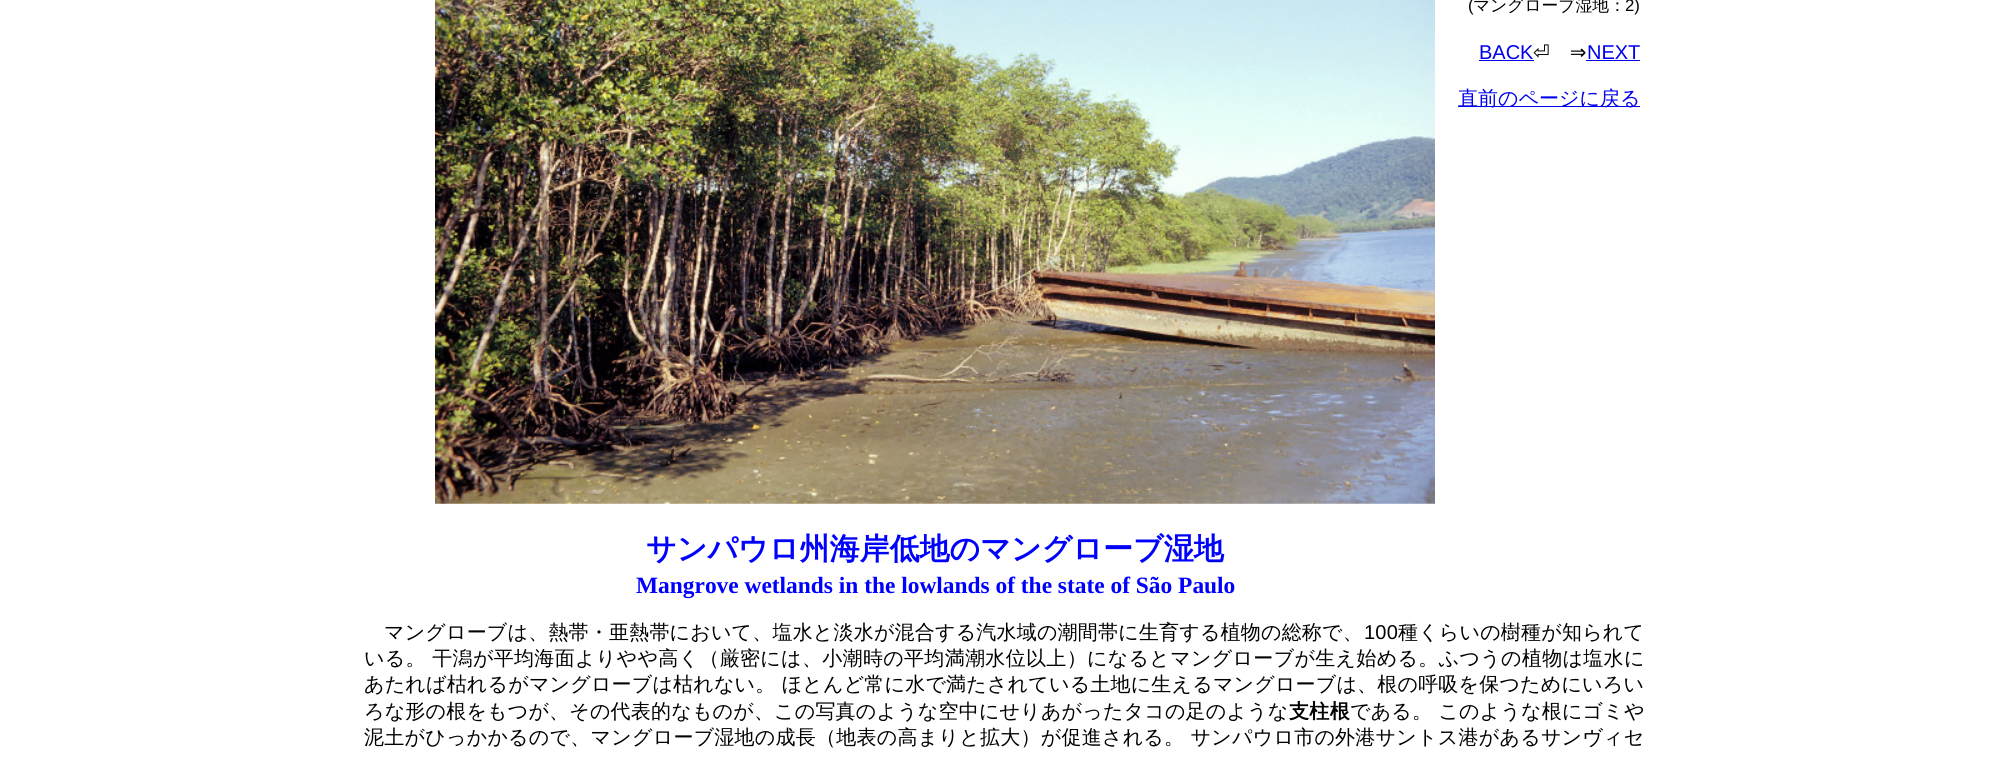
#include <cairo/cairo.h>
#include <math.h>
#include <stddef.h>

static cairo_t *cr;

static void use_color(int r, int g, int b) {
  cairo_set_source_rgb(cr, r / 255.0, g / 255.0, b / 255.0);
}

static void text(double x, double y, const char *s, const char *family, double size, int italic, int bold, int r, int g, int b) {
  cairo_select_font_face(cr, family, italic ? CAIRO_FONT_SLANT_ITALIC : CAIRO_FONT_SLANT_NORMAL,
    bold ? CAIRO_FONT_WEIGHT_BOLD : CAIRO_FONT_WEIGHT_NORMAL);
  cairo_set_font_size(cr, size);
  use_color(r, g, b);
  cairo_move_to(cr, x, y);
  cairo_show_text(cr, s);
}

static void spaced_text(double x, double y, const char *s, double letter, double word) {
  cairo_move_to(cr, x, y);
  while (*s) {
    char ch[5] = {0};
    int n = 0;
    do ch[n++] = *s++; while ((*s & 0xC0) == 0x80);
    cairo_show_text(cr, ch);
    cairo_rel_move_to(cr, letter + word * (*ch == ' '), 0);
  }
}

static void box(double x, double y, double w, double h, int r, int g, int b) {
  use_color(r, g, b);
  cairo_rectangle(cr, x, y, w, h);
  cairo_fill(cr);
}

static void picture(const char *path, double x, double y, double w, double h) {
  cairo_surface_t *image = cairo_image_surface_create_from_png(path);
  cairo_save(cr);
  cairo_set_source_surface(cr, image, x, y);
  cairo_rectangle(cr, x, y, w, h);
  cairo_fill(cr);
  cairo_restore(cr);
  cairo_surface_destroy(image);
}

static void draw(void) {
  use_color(255, 255, 255);
  cairo_paint(cr);
  box(1479, 60, 55, 1, 0, 0, 238);
  box(1586, 60, 54, 1, 0, 0, 238);
  box(1458, 106, 182, 1, 0, 0, 238);
  picture("img_01.png", 435, 0, 1000, 504);
  text(1468, 11, "(", "Liberation Sans", 16.75, 0, 0, 0, 0, 0);
  text(1473, 11, "マングローブ湿地：", "WenQuanYi Zen Hei Medium", 16.75, 0, 0, 0, 0, 0);
  text(1625, 11, "2)", "Liberation Sans", 16.75, 0, 0, 0, 0, 0);
  text(1479, 59, "BACK", "Liberation Sans", 20, 0, 0, 0, 0, 238);
  text(1533, 59, "⏎ ⇒", "DejaVu Sans", 20, 0, 0, 0, 0, 0);
  text(1587, 59, "NEXT", "Liberation Sans", 20, 0, 0, 0, 0, 238);
  text(1458, 105, "直前のページに戻る", "WenQuanYi Zen Hei Medium", 20, 0, 0, 0, 0, 238);
  text(646, 559, "サンパウロ州海岸低地のマングローブ湿地", "WenQuanYi Zen Hei", 30, 0, 1, 0, 0, 255);
  text(636, 593, "Mangrove wetlands in the lowlands of the state of São Paulo", "Liberation Serif", 23.4, 0, 1, 0, 0, 255);
  cairo_select_font_face(cr, "WenQuanYi Zen Hei Medium", CAIRO_FONT_SLANT_NORMAL, CAIRO_FONT_WEIGHT_NORMAL);
  cairo_set_font_size(cr, 20);
  use_color(0, 0, 0);
  spaced_text(384, 639, "マングローブは、熱帯・亜熱帯において、塩水と淡水が混合する汽水域の潮間帯に生育する植物の総称で、", 0.2, 0);
  cairo_select_font_face(cr, "Liberation Sans", CAIRO_FONT_SLANT_NORMAL, CAIRO_FONT_WEIGHT_NORMAL);
  spaced_text(1364, 639, "100", 0.2, 0);
  cairo_select_font_face(cr, "WenQuanYi Zen Hei Medium", CAIRO_FONT_SLANT_NORMAL, CAIRO_FONT_WEIGHT_NORMAL);
  spaced_text(1398, 639, "種くらいの樹種が知られて", 0.2, 0);
  spaced_text(364, 665, "いる。 干潟が平均海面よりやや高く（厳密には、小潮時の平均満潮水位以上）になるとマングローブが生え始める。ふつうの植物は塩水に", 0.33, 0);
  spaced_text(364, 691, "あたれば枯れるがマングローブは枯れない。 ほとんど常に水で満たされている土地に生えるマングローブは、根の呼吸を保つためにいろい", 0.2, 0);
  spaced_text(364, 718, "ろな形の根をもつが、その代表的なものが、この写真のような空中にせりあがったタコの足のような", 0.2, 0);
  cairo_select_font_face(cr, "WenQuanYi Zen Hei", CAIRO_FONT_SLANT_NORMAL, CAIRO_FONT_WEIGHT_BOLD);
  spaced_text(1289, 718, "支柱根", 0.33, 0);
  cairo_select_font_face(cr, "WenQuanYi Zen Hei Medium", CAIRO_FONT_SLANT_NORMAL, CAIRO_FONT_WEIGHT_NORMAL);
  spaced_text(1350, 718, "である。 このような根にゴミや", 0.2, 0);
  spaced_text(364, 744, "泥土がひっかかるので、マングローブ湿地の成長（地表の高まりと拡大）が促進される。 サンパウロ市の外港サントス港があるサンヴィセ", 0.25, 0);
}

int main(void) {
  cairo_surface_t *surface = cairo_image_surface_create(CAIRO_FORMAT_RGB24, 2007, 760);
  cr = cairo_create(surface);
  cairo_font_options_t *options = cairo_font_options_create();
  cairo_font_options_set_hint_metrics(options, CAIRO_HINT_METRICS_OFF);
  cairo_font_options_set_hint_style(options, CAIRO_HINT_STYLE_NONE);
  cairo_set_font_options(cr, options);
  cairo_set_miter_limit(cr, 4);
  draw();
  cairo_surface_write_to_png(surface, "out.png");
  cairo_font_options_destroy(options);
  cairo_destroy(cr);
  cairo_surface_destroy(surface);
  return 0;
}
